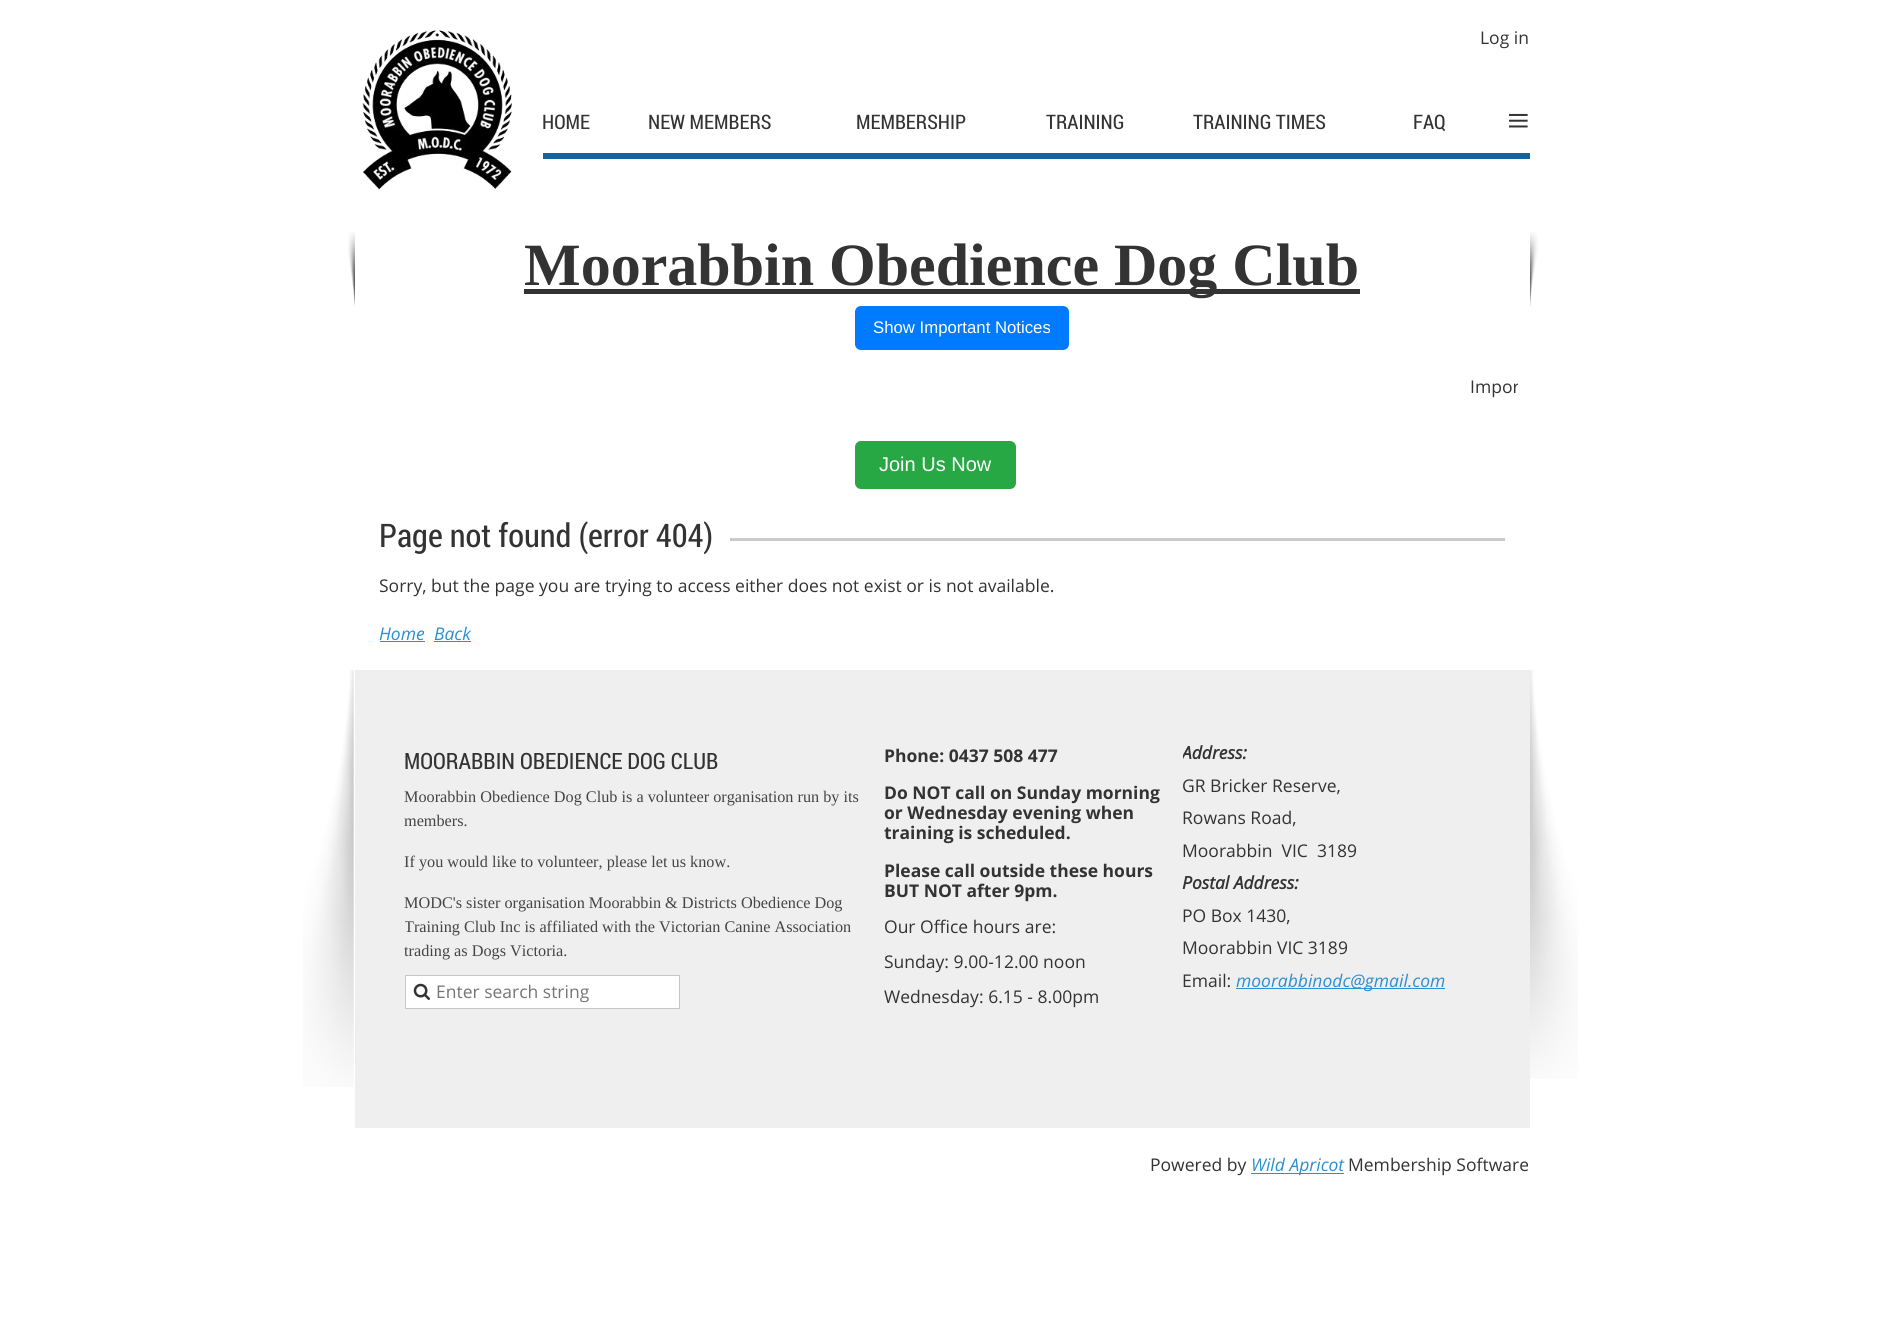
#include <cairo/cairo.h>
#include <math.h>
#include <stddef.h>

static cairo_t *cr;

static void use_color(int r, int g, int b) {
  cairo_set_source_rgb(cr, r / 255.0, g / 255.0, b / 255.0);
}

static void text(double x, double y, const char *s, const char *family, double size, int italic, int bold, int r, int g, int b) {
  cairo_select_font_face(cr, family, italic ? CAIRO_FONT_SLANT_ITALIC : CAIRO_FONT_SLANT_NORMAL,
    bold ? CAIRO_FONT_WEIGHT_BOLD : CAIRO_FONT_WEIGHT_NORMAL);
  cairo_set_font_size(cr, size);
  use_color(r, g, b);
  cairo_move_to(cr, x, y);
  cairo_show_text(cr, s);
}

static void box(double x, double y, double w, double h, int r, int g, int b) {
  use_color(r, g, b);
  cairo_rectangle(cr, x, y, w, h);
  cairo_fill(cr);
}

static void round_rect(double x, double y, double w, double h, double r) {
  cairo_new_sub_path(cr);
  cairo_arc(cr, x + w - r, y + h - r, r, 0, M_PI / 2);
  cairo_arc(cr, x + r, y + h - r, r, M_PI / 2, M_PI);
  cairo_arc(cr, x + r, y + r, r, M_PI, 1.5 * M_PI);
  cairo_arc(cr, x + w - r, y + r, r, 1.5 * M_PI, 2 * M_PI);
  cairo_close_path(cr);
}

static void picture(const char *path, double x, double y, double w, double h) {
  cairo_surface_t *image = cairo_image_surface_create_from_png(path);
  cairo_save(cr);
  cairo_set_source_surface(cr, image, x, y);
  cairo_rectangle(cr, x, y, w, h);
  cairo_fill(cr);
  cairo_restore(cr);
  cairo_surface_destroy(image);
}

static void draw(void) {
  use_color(255, 255, 255);
  cairo_paint(cr);
  picture("img_01.png", 362, 30, 150, 160);
  box(543, 153, 987, 6, 20, 98, 158);
  picture("img_02.png", 348, 232, 7, 74);
  box(524, 289, 836, 5, 51, 51, 51);
  picture("img_03.png", 1530, 232, 8, 74);
  use_color(0, 123, 255);
  round_rect(855, 306, 214, 44, 6);
  cairo_fill(cr);
  use_color(40, 167, 69);
  round_rect(855, 441, 161, 48, 6);
  cairo_fill(cr);
  box(730, 538, 775, 3, 202, 202, 202);
  box(380, 641, 45, 1, 43, 144, 209);
  box(434, 641, 37, 1, 43, 144, 209);
  box(355, 670, 1175, 458, 239, 239, 239);
  picture("img_04.png", 303, 670, 51, 417);
  use_color(255, 255, 255);
  cairo_rectangle(cr, 405.5, 975.5, 274, 33);
  cairo_fill_preserve(cr);
  use_color(198, 198, 198);
  cairo_set_line_width(cr, 1);
  cairo_stroke(cr);
  picture("img_05.png", 413, 983, 17, 17);
  box(1236, 988, 209, 1, 43, 144, 209);
  picture("img_06.png", 1530, 670, 48, 409);
  box(1251, 1173, 93, 1, 43, 144, 209);
  text(1480, 44, "Log in", "Open Sans", 17.5, 0, 0, 51, 51, 51);
  text(542, 129, "HOME", "Roboto Condensed", 20, 0, 0, 51, 51, 51);
  text(648, 129, "NEW MEMBERS", "Roboto Condensed", 20, 0, 0, 51, 51, 51);
  text(856, 129, "MEMBERSHIP", "Roboto Condensed", 20, 0, 0, 51, 51, 51);
  text(1046, 129, "TRAINING", "Roboto Condensed", 20, 0, 0, 51, 51, 51);
  text(1193, 129, "TRAINING TIMES", "Roboto Condensed", 20, 0, 0, 51, 51, 51);
  text(1413, 129, "FAQ", "Roboto Condensed", 20, 0, 0, 51, 51, 51);
  text(1507, 134, "≡", "Liberation Serif", 40, 0, 0, 51, 51, 51);
  text(524, 285, "Moorabbin Obedience Dog Club", "Liberation Serif", 60, 0, 1, 51, 51, 51);
  text(873, 333, "Show Important Notices", "Liberation Sans", 16.75, 0, 0, 255, 255, 255);
  cairo_save(cr);
  cairo_rectangle(cr, 368, 375, 1150, 24);
  cairo_clip(cr);
  text(1470, 393, "Impor", "Open Sans", 17.5, 0, 0, 51, 51, 51);
  cairo_restore(cr);
  text(879, 471, "Join Us Now", "Liberation Sans", 20, 0, 0, 255, 255, 255);
  text(379, 547, "Page not found (error 404)", "Roboto Condensed", 32.5, 0, 0, 51, 51, 51);
  text(379, 592, "Sorry, but the page you are trying to access either does not exist or is not available.", "Open Sans", 17.5, 0, 0, 51, 51, 51);
  text(379, 640, "Home", "Open Sans", 17.5, 1, 0, 43, 144, 209);
  text(434, 640, "Back", "Open Sans", 17.5, 1, 0, 43, 144, 209);
  text(404, 769, "MOORABBIN OBEDIENCE DOG CLUB", "Roboto Condensed", 22.5, 0, 0, 51, 51, 51);
  text(404, 802, "Moorabbin Obedience Dog Club is a volunteer organisation run by its", "Liberation Serif", 16.25, 0, 0, 68, 68, 68);
  text(404, 826, "members.", "Liberation Serif", 16.25, 0, 0, 68, 68, 68);
  text(404, 867, "If you would like to volunteer, please let us know.", "Liberation Serif", 16.25, 0, 0, 68, 68, 68);
  text(404, 908, "MODC's sister organisation Moorabbin & Districts Obedience Dog", "Liberation Serif", 16.25, 0, 0, 68, 68, 68);
  cairo_save(cr);
  cairo_rectangle(cr, 405, 745, 466, 218);
  cairo_clip(cr);
  text(404, 932, "Training", "Liberation Serif", 16.25, 0, 0, 68, 68, 68);
  cairo_restore(cr);
  text(464, 932, "Club Inc is affiliated with the Victorian Canine Association", "Liberation Serif", 16.25, 0, 0, 68, 68, 68);
  text(404, 956, "trading as Dogs Victoria.", "Liberation Serif", 16.25, 0, 0, 68, 68, 68);
  text(436, 998, "Enter search string", "Open Sans", 17.5, 0, 0, 117, 117, 117);
  text(884, 762, "Phone: 0437 508 477", "Open Sans", 17.5, 0, 1, 51, 51, 51);
  text(884, 799, "Do NOT call on Sunday morning", "Open Sans", 17.5, 0, 1, 51, 51, 51);
  text(884, 819, "or Wednesday evening when", "Open Sans", 17.5, 0, 1, 51, 51, 51);
  text(884, 839, "training is scheduled.", "Open Sans", 17.5, 0, 1, 51, 51, 51);
  text(884, 877, "Please call outside these hours", "Open Sans", 17.5, 0, 1, 51, 51, 51);
  text(884, 897, "BUT NOT after 9pm.", "Open Sans", 17.5, 0, 1, 51, 51, 51);
  text(884, 933, "Our Office hours are:", "Open Sans", 17.5, 0, 0, 51, 51, 51);
  text(884, 968, "Sunday: 9.00-12.00 noon", "Open Sans", 17.5, 0, 0, 51, 51, 51);
  text(884, 1003, "Wednesday: 6.15 - 8.00pm", "Open Sans", 17.5, 0, 0, 51, 51, 51);
  cairo_save(cr);
  cairo_rectangle(cr, 1183, 745, 297, 275);
  cairo_clip(cr);
  text(1182, 759, "Address:", "Open Sans", 17.5, 1, 1, 51, 51, 51);
  cairo_restore(cr);
  text(1182, 792, "GR Bricker Reserve,", "Open Sans", 17.5, 0, 0, 51, 51, 51);
  text(1182, 824, "Rowans Road,", "Open Sans", 17.5, 0, 0, 51, 51, 51);
  text(1182, 857, "Moorabbin  VIC  3189", "Open Sans", 17.5, 0, 0, 51, 51, 51);
  text(1182, 889, "Postal Address:", "Open Sans", 17.5, 1, 1, 51, 51, 51);
  text(1182, 922, "PO Box 1430,", "Open Sans", 17.5, 0, 0, 51, 51, 51);
  text(1182, 954, "Moorabbin VIC 3189", "Open Sans", 17.5, 0, 0, 51, 51, 51);
  text(1182, 987, "Email:", "Open Sans", 17.5, 0, 0, 51, 51, 51);
  text(1236, 987, "moorabbinodc@gmail.com", "Open Sans", 17.5, 1, 0, 43, 144, 209);
  text(1150, 1171, "Powered by", "Open Sans", 17.5, 0, 0, 51, 51, 51);
  text(1251, 1171, "Wild Apricot", "Open Sans", 17.5, 1, 0, 43, 144, 209);
  text(1348, 1171, "Membership Software", "Open Sans", 17.5, 0, 0, 51, 51, 51);
}

int main(void) {
  cairo_surface_t *surface = cairo_image_surface_create(CAIRO_FORMAT_RGB24, 1883, 1336);
  cr = cairo_create(surface);
  cairo_font_options_t *options = cairo_font_options_create();
  cairo_font_options_set_hint_metrics(options, CAIRO_HINT_METRICS_OFF);
  cairo_font_options_set_hint_style(options, CAIRO_HINT_STYLE_NONE);
  cairo_set_font_options(cr, options);
  cairo_set_miter_limit(cr, 4);
  draw();
  cairo_surface_write_to_png(surface, "out.png");
  cairo_font_options_destroy(options);
  cairo_destroy(cr);
  cairo_surface_destroy(surface);
  return 0;
}
